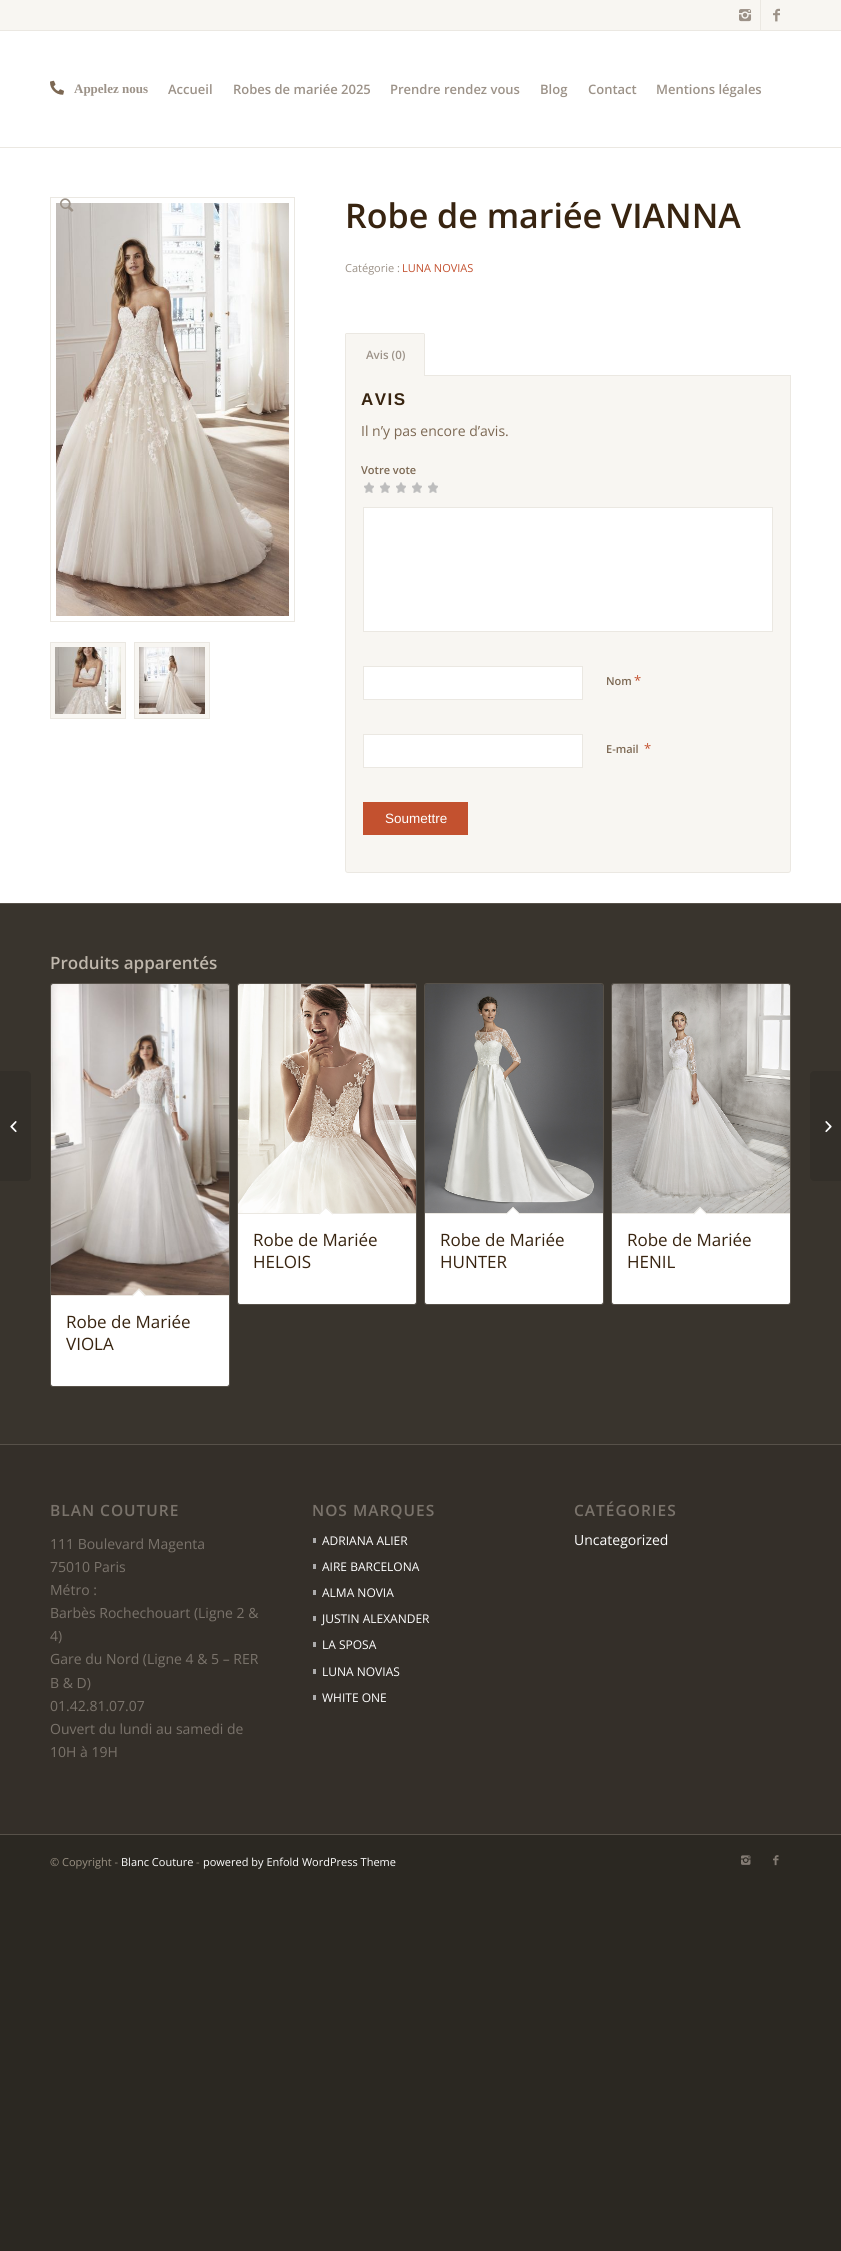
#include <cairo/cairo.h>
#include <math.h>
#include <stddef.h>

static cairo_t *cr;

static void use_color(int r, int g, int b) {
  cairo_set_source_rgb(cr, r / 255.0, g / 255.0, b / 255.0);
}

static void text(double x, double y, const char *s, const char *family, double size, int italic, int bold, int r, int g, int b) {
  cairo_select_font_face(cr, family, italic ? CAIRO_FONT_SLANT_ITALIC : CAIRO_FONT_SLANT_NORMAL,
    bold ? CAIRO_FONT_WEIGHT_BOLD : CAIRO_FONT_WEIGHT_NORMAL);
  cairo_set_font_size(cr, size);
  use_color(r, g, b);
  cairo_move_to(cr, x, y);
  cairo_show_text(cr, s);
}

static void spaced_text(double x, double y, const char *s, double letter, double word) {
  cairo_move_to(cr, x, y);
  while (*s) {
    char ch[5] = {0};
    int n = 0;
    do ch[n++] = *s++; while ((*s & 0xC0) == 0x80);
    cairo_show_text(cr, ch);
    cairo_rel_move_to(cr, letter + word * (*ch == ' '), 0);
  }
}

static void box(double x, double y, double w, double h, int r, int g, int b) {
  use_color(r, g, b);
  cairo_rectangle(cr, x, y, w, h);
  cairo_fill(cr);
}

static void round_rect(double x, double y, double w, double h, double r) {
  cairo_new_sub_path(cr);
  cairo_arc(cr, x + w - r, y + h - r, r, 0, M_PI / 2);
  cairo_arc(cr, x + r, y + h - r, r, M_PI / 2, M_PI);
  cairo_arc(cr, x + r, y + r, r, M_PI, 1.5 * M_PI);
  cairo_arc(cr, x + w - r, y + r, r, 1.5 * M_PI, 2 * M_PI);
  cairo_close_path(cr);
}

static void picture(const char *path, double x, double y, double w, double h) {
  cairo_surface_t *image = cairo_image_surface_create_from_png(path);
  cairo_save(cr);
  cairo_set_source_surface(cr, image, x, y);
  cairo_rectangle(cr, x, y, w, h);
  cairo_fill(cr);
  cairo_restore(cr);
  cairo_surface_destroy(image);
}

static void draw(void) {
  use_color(43, 40, 34);
  cairo_paint(cr);
  box(0, 0, 841, 30, 248, 246, 242);
  box(0, 30, 841, 1, 235, 232, 226);
  box(760, 0, 1, 30, 235, 232, 226);
  picture("img_01.png", 739, 9, 13, 13);
  picture("img_02.png", 773, 8, 7, 14);
  box(0, 31, 841, 872, 255, 255, 255);
  box(0, 147, 841, 1, 235, 232, 226);
  picture("img_03.png", 50, 80, 14, 15);
  cairo_rectangle(cr, 50.5, 197.5, 244, 424);
  cairo_set_line_width(cr, 1);
  cairo_stroke(cr);
  picture("img_06.png", 56, 203, 233, 413);
  picture("img_04.png", 60, 198, 14, 14);
  box(0, 904, 841, 540, 57, 52, 45);
  use_color(51, 47, 41);
  cairo_new_path(cr);
  cairo_move_to(cr, 0, 1071);
  cairo_line_to(cr, 27, 1071);
  cairo_curve_to(cr, 29, 1071, 31, 1073, 31, 1075);
  cairo_line_to(cr, 31, 1177);
  cairo_curve_to(cr, 31, 1179, 29, 1181, 27, 1181);
  cairo_line_to(cr, 0, 1181);
  cairo_close_path(cr);
  cairo_fill(cr);
  picture("img_05.png", 10, 1121, 7, 12);
  use_color(248, 246, 242);
  cairo_rectangle(cr, 50.5, 642.5, 75, 76);
  cairo_fill_preserve(cr);
  use_color(235, 232, 226);
  cairo_stroke(cr);
  picture("img_07.png", 55, 647, 66, 67);
  use_color(248, 246, 242);
  cairo_rectangle(cr, 134.5, 642.5, 75, 76);
  cairo_fill_preserve(cr);
  use_color(235, 232, 226);
  cairo_stroke(cr);
  picture("img_08.png", 139, 647, 66, 67);
  use_color(248, 246, 242);
  cairo_new_path(cr);
  cairo_move_to(cr, 345.5, 375.5);
  cairo_line_to(cr, 790.5, 375.5);
  cairo_line_to(cr, 790.5, 870);
  cairo_curve_to(cr, 790.5, 871.5, 789.5, 872.5, 788, 872.5);
  cairo_line_to(cr, 348, 872.5);
  cairo_curve_to(cr, 346.5, 872.5, 345.5, 871.5, 345.5, 870);
  cairo_close_path(cr);
  cairo_fill_preserve(cr);
  use_color(235, 232, 226);
  cairo_stroke(cr);
  box(345, 333, 80, 43, 248, 246, 242);
  box(346, 333, 78, 1, 235, 232, 226);
  box(424, 334, 1, 42, 235, 232, 226);
  box(345, 334, 1, 42, 235, 232, 226);
  picture("img_09.png", 364, 482, 74, 11);
  use_color(255, 255, 255);
  cairo_rectangle(cr, 363.5, 507.5, 409, 124);
  cairo_fill_preserve(cr);
  use_color(235, 232, 226);
  cairo_stroke(cr);
  use_color(255, 255, 255);
  cairo_rectangle(cr, 363.5, 666.5, 219, 33);
  cairo_fill_preserve(cr);
  use_color(235, 232, 226);
  cairo_stroke(cr);
  use_color(255, 255, 255);
  cairo_rectangle(cr, 363.5, 734.5, 219, 33);
  cairo_fill_preserve(cr);
  use_color(235, 232, 226);
  cairo_stroke(cr);
  box(363, 802, 105, 33, 195, 81, 47);
  box(0, 903, 841, 1, 87, 81, 73);
  round_rect(237.5, 983.5, 179, 321, 2.5);
  cairo_stroke(cr);
  picture("img_10.png", 238, 984, 178, 229);
  use_color(255, 255, 255);
  cairo_new_path(cr);
  cairo_move_to(cr, 238, 1213);
  cairo_line_to(cr, 416, 1213);
  cairo_line_to(cr, 416, 1302);
  cairo_curve_to(cr, 416, 1303, 415, 1304, 414, 1304);
  cairo_line_to(cr, 240, 1304);
  cairo_curve_to(cr, 239, 1304, 238, 1303, 238, 1302);
  cairo_close_path(cr);
  cairo_fill(cr);
  box(238, 1213, 178, 1, 235, 232, 226);
  use_color(255, 255, 255);
  cairo_new_path(cr);
  cairo_move_to(cr, 326, 1207);
  cairo_line_to(cr, 333, 1214);
  cairo_line_to(cr, 326, 1221);
  cairo_line_to(cr, 319, 1214);
  cairo_close_path(cr);
  cairo_fill(cr);
  use_color(235, 232, 226);
  cairo_new_path(cr);
  cairo_move_to(cr, 326, 1207);
  cairo_line_to(cr, 333, 1214);
  cairo_line_to(cr, 332.5, 1214.5);
  cairo_line_to(cr, 325, 1207.5);
  cairo_close_path(cr);
  cairo_fill(cr);
  cairo_new_path(cr);
  cairo_move_to(cr, 326, 1207);
  cairo_line_to(cr, 326.5, 1207.5);
  cairo_line_to(cr, 319.5, 1214.5);
  cairo_line_to(cr, 319, 1214);
  cairo_close_path(cr);
  cairo_fill(cr);
  round_rect(424.5, 983.5, 179, 321, 2.5);
  use_color(87, 81, 73);
  cairo_stroke(cr);
  picture("img_11.png", 425, 984, 178, 229);
  use_color(255, 255, 255);
  cairo_new_path(cr);
  cairo_move_to(cr, 425, 1213);
  cairo_line_to(cr, 603, 1213);
  cairo_line_to(cr, 603, 1302);
  cairo_curve_to(cr, 603, 1303, 602, 1304, 601, 1304);
  cairo_line_to(cr, 427, 1304);
  cairo_curve_to(cr, 426, 1304, 425, 1303, 425, 1302);
  cairo_close_path(cr);
  cairo_fill(cr);
  box(425, 1213, 178, 1, 235, 232, 226);
  use_color(255, 255, 255);
  cairo_new_path(cr);
  cairo_move_to(cr, 513, 1207);
  cairo_line_to(cr, 520, 1214);
  cairo_line_to(cr, 513, 1221);
  cairo_line_to(cr, 506, 1214);
  cairo_close_path(cr);
  cairo_fill(cr);
  use_color(235, 232, 226);
  cairo_new_path(cr);
  cairo_move_to(cr, 513, 1207);
  cairo_line_to(cr, 520, 1214);
  cairo_line_to(cr, 519.5, 1214.5);
  cairo_line_to(cr, 512.5, 1207.5);
  cairo_close_path(cr);
  cairo_fill(cr);
  cairo_new_path(cr);
  cairo_move_to(cr, 513, 1207);
  cairo_line_to(cr, 513.5, 1207.5);
  cairo_line_to(cr, 506.5, 1214.5);
  cairo_line_to(cr, 506, 1214);
  cairo_close_path(cr);
  cairo_fill(cr);
  round_rect(611.5, 983.5, 179, 321, 2.5);
  use_color(87, 81, 73);
  cairo_stroke(cr);
  picture("img_12.png", 612, 984, 178, 229);
  use_color(255, 255, 255);
  cairo_new_path(cr);
  cairo_move_to(cr, 612, 1213);
  cairo_line_to(cr, 790, 1213);
  cairo_line_to(cr, 790, 1302);
  cairo_curve_to(cr, 790, 1303, 789, 1304, 788, 1304);
  cairo_line_to(cr, 614, 1304);
  cairo_curve_to(cr, 613, 1304, 612, 1303, 612, 1302);
  cairo_close_path(cr);
  cairo_fill(cr);
  box(612, 1213, 178, 1, 235, 232, 226);
  use_color(255, 255, 255);
  cairo_new_path(cr);
  cairo_move_to(cr, 700, 1207);
  cairo_line_to(cr, 707, 1214);
  cairo_line_to(cr, 700, 1221);
  cairo_line_to(cr, 693, 1214);
  cairo_close_path(cr);
  cairo_fill(cr);
  use_color(235, 232, 226);
  cairo_new_path(cr);
  cairo_move_to(cr, 700, 1207);
  cairo_line_to(cr, 707, 1214);
  cairo_line_to(cr, 706.5, 1214.5);
  cairo_line_to(cr, 699.5, 1207.5);
  cairo_close_path(cr);
  cairo_fill(cr);
  cairo_new_path(cr);
  cairo_move_to(cr, 700, 1207);
  cairo_line_to(cr, 701, 1207.5);
  cairo_line_to(cr, 694, 1214.5);
  cairo_line_to(cr, 693, 1214);
  cairo_close_path(cr);
  cairo_fill(cr);
  round_rect(50.5, 983.5, 179, 403, 2.5);
  use_color(87, 81, 73);
  cairo_stroke(cr);
  picture("img_13.png", 51, 984, 178, 311);
  use_color(255, 255, 255);
  cairo_new_path(cr);
  cairo_move_to(cr, 51, 1295);
  cairo_line_to(cr, 229, 1295);
  cairo_line_to(cr, 229, 1384);
  cairo_curve_to(cr, 229, 1385, 228, 1386, 227, 1386);
  cairo_line_to(cr, 53, 1386);
  cairo_curve_to(cr, 52, 1386, 51, 1385, 51, 1384);
  cairo_close_path(cr);
  cairo_fill(cr);
  box(51, 1295, 178, 1, 235, 232, 226);
  use_color(255, 255, 255);
  cairo_new_path(cr);
  cairo_move_to(cr, 139, 1288.5);
  cairo_line_to(cr, 146, 1295.5);
  cairo_line_to(cr, 139, 1302.5);
  cairo_line_to(cr, 132, 1295.5);
  cairo_close_path(cr);
  cairo_fill(cr);
  use_color(235, 232, 226);
  cairo_new_path(cr);
  cairo_move_to(cr, 139, 1288.5);
  cairo_line_to(cr, 146, 1295.5);
  cairo_line_to(cr, 145, 1296.5);
  cairo_line_to(cr, 138, 1289.5);
  cairo_close_path(cr);
  cairo_fill(cr);
  cairo_new_path(cr);
  cairo_move_to(cr, 139, 1288.5);
  cairo_line_to(cr, 139.5, 1289.5);
  cairo_line_to(cr, 132.5, 1296.5);
  cairo_line_to(cr, 132, 1295.5);
  cairo_close_path(cr);
  cairo_fill(cr);
  box(0, 1445, 841, 389, 52, 47, 41);
  box(0, 1444, 841, 1, 87, 81, 73);
  box(313, 1538, 3, 5, 172, 172, 172);
  box(313, 1564, 3, 5, 172, 172, 172);
  box(313, 1590, 3, 5, 172, 172, 172);
  box(313, 1616, 3, 5, 172, 172, 172);
  box(313, 1642, 3, 5, 172, 172, 172);
  box(313, 1669, 3, 5, 172, 172, 172);
  box(313, 1695, 3, 5, 172, 172, 172);
  box(0, 1834, 841, 1, 87, 81, 73);
  picture("img_14.png", 741, 1855, 10, 10);
  picture("img_15.png", 773, 1855, 6, 11);
  use_color(51, 47, 41);
  cairo_new_path(cr);
  cairo_move_to(cr, 814, 1071);
  cairo_line_to(cr, 841, 1071);
  cairo_line_to(cr, 841, 1181);
  cairo_line_to(cr, 814, 1181);
  cairo_curve_to(cr, 812, 1181, 810, 1179, 810, 1177);
  cairo_line_to(cr, 810, 1075);
  cairo_curve_to(cr, 810, 1073, 812, 1071, 814, 1071);
  cairo_close_path(cr);
  cairo_fill(cr);
  picture("img_16.png", 825, 1121, 7, 12);
  text(74, 93, "Appelez nous", "Liberation Serif", 13, 0, 1, 156, 146, 136);
  text(168, 94, "Accueil", "Open Sans SemiBold", 13, 0, 0, 156, 146, 136);
  text(233, 94, "Robes de mariée 2025", "Open Sans SemiBold", 13, 0, 0, 156, 146, 136);
  text(390, 94, "Prendre rendez vous", "Open Sans SemiBold", 13, 0, 0, 156, 146, 136);
  text(540, 94, "Blog", "Open Sans SemiBold", 13, 0, 0, 156, 146, 136);
  text(588, 94, "Contact", "Open Sans SemiBold", 13, 0, 0, 156, 146, 136);
  text(656, 94, "Mentions légales", "Open Sans SemiBold", 13, 0, 0, 156, 146, 136);
  text(345, 228, "Robe de mariée VIANNA", "Open Sans SemiBold", 34, 0, 0, 56, 36, 16);
  text(345, 272, "Catégorie :", "Open Sans", 11, 0, 0, 156, 146, 136);
  text(402, 272, "LUNA NOVIAS", "Open Sans", 11, 0, 0, 195, 81, 47);
  text(366, 359, "Avis (0)", "Open Sans SemiBold", 11.5, 0, 0, 156, 146, 136);
  cairo_select_font_face(cr, "Liberation Sans", CAIRO_FONT_SLANT_NORMAL, CAIRO_FONT_WEIGHT_BOLD);
  cairo_set_font_size(cr, 17);
  use_color(56, 36, 16);
  spaced_text(361, 405, "AVIS", 1.5, 0);
  text(361, 436, "Il n’y pas encore d’avis.", "Open Sans", 14, 0, 0, 124, 104, 83);
  text(361, 474, "Votre vote", "Open Sans SemiBold", 11, 0, 0, 124, 104, 83);
  text(606, 685, "Nom", "Open Sans SemiBold", 11, 0, 0, 124, 104, 83);
  text(634, 685, "*", "Open Sans", 13, 0, 0, 195, 81, 47);
  text(606, 753, "E-mail", "Open Sans SemiBold", 11, 0, 0, 124, 104, 83);
  text(644, 753, "*", "Open Sans", 13, 0, 0, 195, 81, 47);
  text(385, 823, "Soumettre", "Liberation Sans", 13.5, 0, 0, 255, 255, 255);
  text(50, 969, "Produits apparentés", "Open Sans SemiBold", 17, 0, 0, 191, 183, 172);
  text(253, 1246, "Robe de Mariée", "Open Sans", 17, 0, 0, 56, 36, 16);
  text(253, 1268, "HELOIS", "Open Sans", 17, 0, 0, 56, 36, 16);
  text(440, 1246, "Robe de Mariée", "Open Sans", 17, 0, 0, 56, 36, 16);
  text(440, 1268, "HUNTER", "Open Sans", 17, 0, 0, 56, 36, 16);
  text(627, 1246, "Robe de Mariée", "Open Sans", 17, 0, 0, 56, 36, 16);
  text(627, 1268, "HENIL", "Open Sans", 17, 0, 0, 56, 36, 16);
  text(66, 1328, "Robe de Mariée", "Open Sans", 17, 0, 0, 56, 36, 16);
  text(66, 1350, "VIOLA", "Open Sans", 17, 0, 0, 56, 36, 16);
  cairo_select_font_face(cr, "Open Sans SemiBold", CAIRO_FONT_SLANT_NORMAL, CAIRO_FONT_WEIGHT_NORMAL);
  cairo_set_font_size(cr, 15.5);
  use_color(122, 115, 107);
  spaced_text(50, 1516, "BLAN COUTURE", 1, 0);
  text(50, 1549, "111 Boulevard Magenta", "Open Sans", 14, 0, 0, 122, 115, 107);
  text(50, 1572, "75010 Paris", "Open Sans", 14, 0, 0, 122, 115, 107);
  text(50, 1595, "Métro :", "Open Sans", 14, 0, 0, 122, 115, 107);
  text(50, 1618, "Barbès Rochechouart (Ligne 2 &", "Open Sans", 14, 0, 0, 122, 115, 107);
  text(50, 1641, "4)", "Open Sans", 14, 0, 0, 122, 115, 107);
  text(50, 1664, "Gare du Nord (Ligne 4 & 5 – RER", "Open Sans", 14, 0, 0, 122, 115, 107);
  text(50, 1688, "B & D)", "Open Sans", 14, 0, 0, 122, 115, 107);
  text(50, 1711, "01.42.81.07.07", "Open Sans", 14, 0, 0, 122, 115, 107);
  text(50, 1734, "Ouvert du lundi au samedi de", "Open Sans", 14, 0, 0, 122, 115, 107);
  text(50, 1757, "10H à 19H", "Open Sans", 14, 0, 0, 122, 115, 107);
  cairo_select_font_face(cr, "Open Sans SemiBold", CAIRO_FONT_SLANT_NORMAL, CAIRO_FONT_WEIGHT_NORMAL);
  cairo_set_font_size(cr, 15.5);
  spaced_text(312, 1516, "NOS MARQUES", 1, 0);
  text(322, 1545, "ADRIANA ALIER", "Open Sans", 12, 0, 0, 255, 255, 255);
  text(322, 1571, "AIRE BARCELONA", "Open Sans", 12, 0, 0, 255, 255, 255);
  text(322, 1597, "ALMA NOVIA", "Open Sans", 12, 0, 0, 255, 255, 255);
  text(322, 1623, "JUSTIN ALEXANDER", "Open Sans", 12, 0, 0, 255, 255, 255);
  text(322, 1649, "LA SPOSA", "Open Sans", 12, 0, 0, 255, 255, 255);
  text(322, 1676, "LUNA NOVIAS", "Open Sans", 12, 0, 0, 255, 255, 255);
  text(322, 1702, "WHITE ONE", "Open Sans", 12, 0, 0, 255, 255, 255);
  cairo_select_font_face(cr, "Open Sans SemiBold", CAIRO_FONT_SLANT_NORMAL, CAIRO_FONT_WEIGHT_NORMAL);
  cairo_set_font_size(cr, 15.5);
  use_color(122, 115, 107);
  spaced_text(574, 1516, "CATÉGORIES", 1, 0);
  text(574, 1545, "Uncategorized", "Open Sans", 14, 0, 0, 255, 255, 255);
  text(50, 1866, "© Copyright -", "Open Sans", 11, 0, 0, 152, 143, 129);
  text(121, 1866, "Blanc Couture", "Open Sans", 11, 0, 0, 255, 255, 255);
  text(196, 1866, "-", "Open Sans", 11, 0, 0, 152, 143, 129);
  text(203, 1866, "powered by Enfold WordPress Theme", "Open Sans", 11, 0, 0, 255, 255, 255);
}

int main(void) {
  cairo_surface_t *surface = cairo_image_surface_create(CAIRO_FORMAT_RGB24, 841, 2251);
  cr = cairo_create(surface);
  cairo_font_options_t *options = cairo_font_options_create();
  cairo_font_options_set_hint_metrics(options, CAIRO_HINT_METRICS_OFF);
  cairo_font_options_set_hint_style(options, CAIRO_HINT_STYLE_NONE);
  cairo_set_font_options(cr, options);
  cairo_set_miter_limit(cr, 4);
  draw();
  cairo_surface_write_to_png(surface, "out.png");
  cairo_font_options_destroy(options);
  cairo_destroy(cr);
  cairo_surface_destroy(surface);
  return 0;
}
